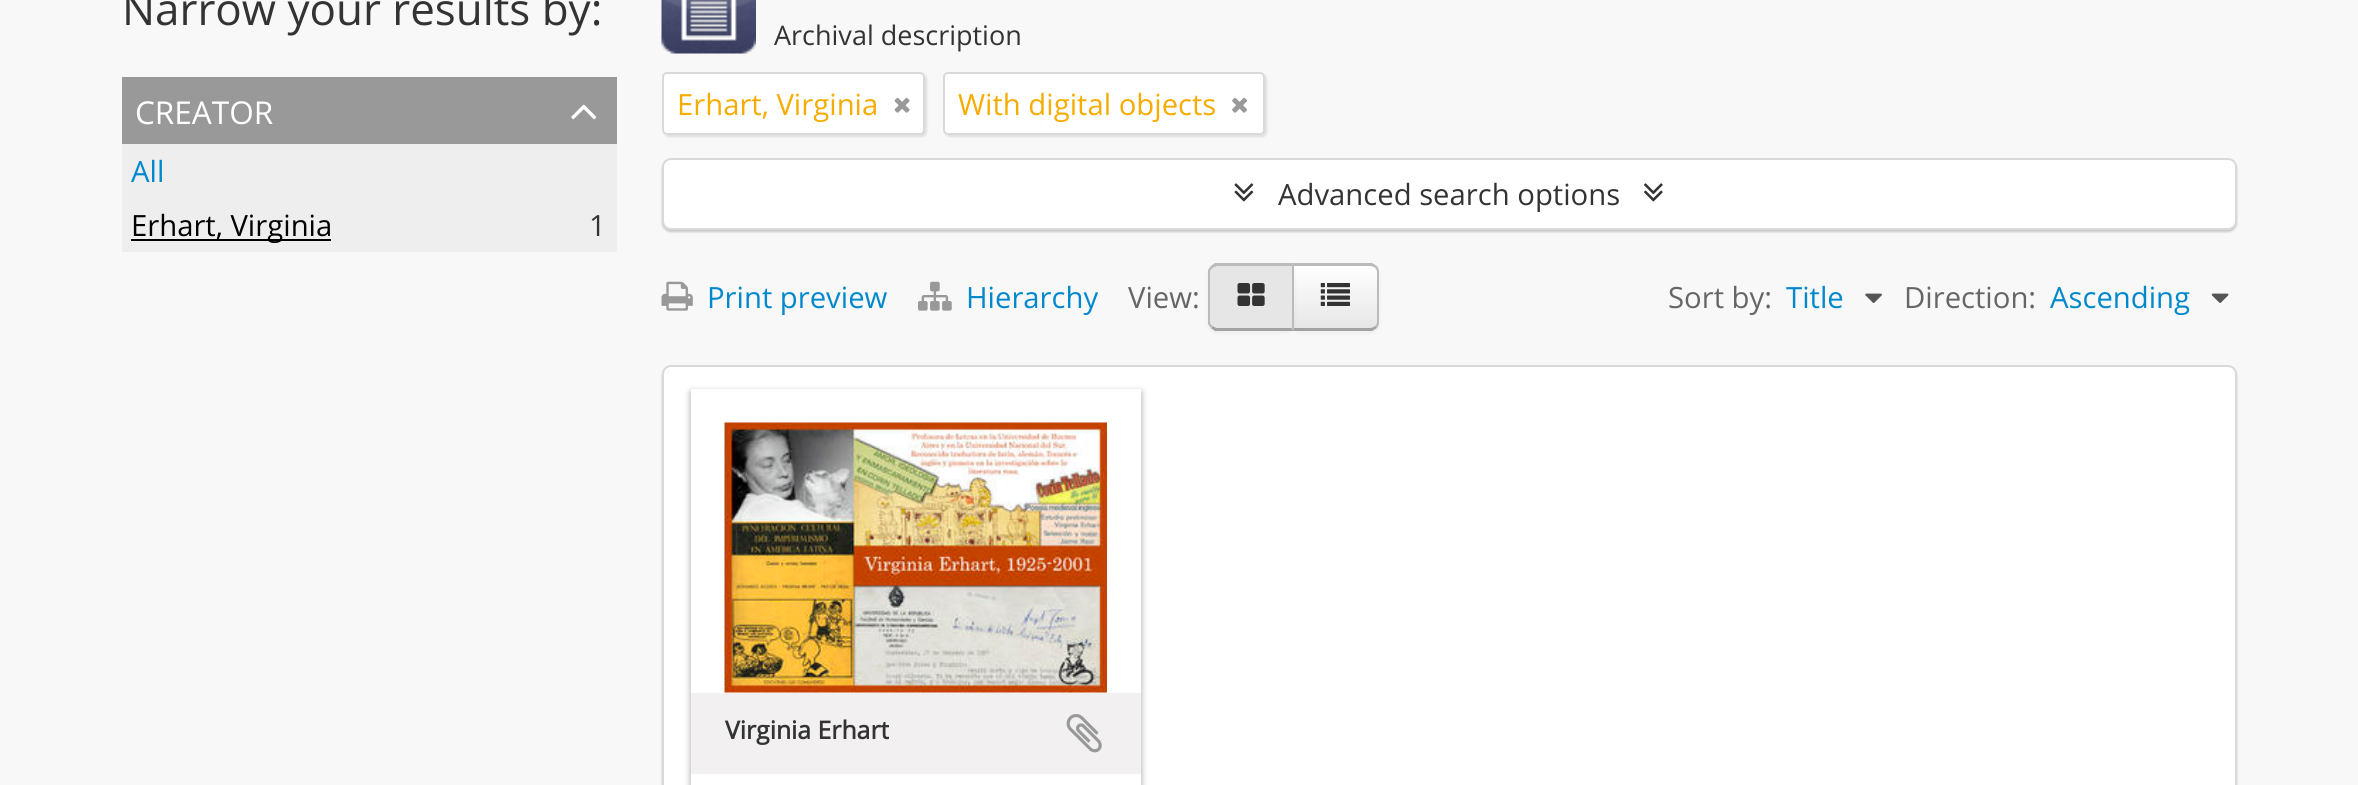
#include <cairo/cairo.h>
#include <math.h>
#include <stddef.h>

static cairo_t *cr;

static void use_color(int r, int g, int b) {
  cairo_set_source_rgb(cr, r / 255.0, g / 255.0, b / 255.0);
}

static void text(double x, double y, const char *s, const char *family, double size, int italic, int bold, int r, int g, int b) {
  cairo_select_font_face(cr, family, italic ? CAIRO_FONT_SLANT_ITALIC : CAIRO_FONT_SLANT_NORMAL,
    bold ? CAIRO_FONT_WEIGHT_BOLD : CAIRO_FONT_WEIGHT_NORMAL);
  cairo_set_font_size(cr, size);
  use_color(r, g, b);
  cairo_move_to(cr, x, y);
  cairo_show_text(cr, s);
}

static void box(double x, double y, double w, double h, int r, int g, int b) {
  use_color(r, g, b);
  cairo_rectangle(cr, x, y, w, h);
  cairo_fill(cr);
}

static void round_rect(double x, double y, double w, double h, double r) {
  cairo_new_sub_path(cr);
  cairo_arc(cr, x + w - r, y + h - r, r, 0, M_PI / 2);
  cairo_arc(cr, x + r, y + h - r, r, M_PI / 2, M_PI);
  cairo_arc(cr, x + r, y + r, r, M_PI, 1.5 * M_PI);
  cairo_arc(cr, x + w - r, y + r, r, 1.5 * M_PI, 2 * M_PI);
  cairo_close_path(cr);
}

static void shadow(double x, double y, double w, double h, double r, double blur, double alpha) {
  cairo_push_group_with_content(cr, CAIRO_CONTENT_ALPHA);
  cairo_set_operator(cr, CAIRO_OPERATOR_SOURCE);
  for (int i = 15; i >= -15 && fmin(w, h) + blur * i / 3 > 0; i -= 2) {
    double e = blur * i / 6;
    cairo_set_source_rgba(cr, 0, 0, 0, alpha * erfc((i - 1) / 8.5) / 2);
    round_rect(x - e, y - e, w + 2 * e, h + 2 * e, fmax(0, fmin(r + e + blur * .6, fmin(w, h) / 2 + e)));
    cairo_fill(cr);
  }
  cairo_pattern_t *soft = cairo_pop_group(cr);
  cairo_mask(cr, soft);
  cairo_pattern_destroy(soft);
}

static void picture(const char *path, double x, double y, double w, double h) {
  cairo_surface_t *image = cairo_image_surface_create_from_png(path);
  cairo_save(cr);
  cairo_set_source_surface(cr, image, x, y);
  cairo_rectangle(cr, x, y, w, h);
  cairo_fill(cr);
  cairo_restore(cr);
  cairo_surface_destroy(image);
}

static void draw(void) {
  cairo_pattern_t *gradient;
  use_color(248, 248, 248);
  cairo_paint(cr);
  box(122, 77, 495, 67, 153, 153, 153);
  picture("img_01.png", 571, 104, 26, 16);
  box(122, 144, 495, 108, 238, 238, 238);
  box(131, 239, 200, 2, 0, 0, 0);
  picture("img_02.png", 661, 0, 95, 54);
  use_color(0, 0, 0);
  shadow(664, 74, 263, 63, 5, 1, 0.1);
  use_color(255, 255, 255);
  round_rect(663, 73, 261, 61, 4);
  cairo_fill_preserve(cr);
  use_color(217, 217, 217);
  cairo_stroke(cr);
  picture("img_03.png", 894, 97, 16, 16);
  use_color(0, 0, 0);
  shadow(945, 74, 322, 63, 5, 1, 0.1);
  use_color(255, 255, 255);
  round_rect(944, 73, 320, 61, 4);
  cairo_fill_preserve(cr);
  use_color(217, 217, 217);
  cairo_stroke(cr);
  picture("img_04.png", 1232, 97, 15, 16);
  use_color(0, 0, 0);
  shadow(662, 160, 1575, 72, 9, 1, 0.2);
  use_color(255, 255, 255);
  round_rect(663, 159, 1573, 70, 8);
  cairo_fill_preserve(cr);
  use_color(217, 217, 217);
  cairo_stroke(cr);
  picture("img_05.png", 1234, 183, 20, 19);
  picture("img_06.png", 1644, 183, 19, 19);
  picture("img_07.png", 661, 281, 32, 30);
  picture("img_08.png", 918, 281, 34, 30);
  use_color(0, 0, 0);
  shadow(1292, 266, 87, 67, 9, 2, 0.05);
  use_color(245, 245, 245);
  cairo_new_path(cr);
  cairo_move_to(cr, 1292, 263);
  cairo_line_to(cr, 1370, 263);
  cairo_curve_to(cr, 1375, 263, 1379, 267, 1379, 272);
  cairo_line_to(cr, 1379, 322);
  cairo_curve_to(cr, 1379, 327, 1375, 331, 1370, 331);
  cairo_line_to(cr, 1292, 331);
  cairo_close_path(cr);
  cairo_fill(cr);
  cairo_save(cr);
  cairo_new_path(cr);
  cairo_move_to(cr, 1292, 263);
  cairo_line_to(cr, 1370, 263);
  cairo_curve_to(cr, 1375, 263, 1379, 267, 1379, 272);
  cairo_line_to(cr, 1379, 322);
  cairo_curve_to(cr, 1379, 327, 1375, 331, 1370, 331);
  cairo_line_to(cr, 1292, 331);
  cairo_close_path(cr);
  cairo_clip(cr);
  gradient = cairo_pattern_create_linear(1335, 266, 1335, 329);
  cairo_pattern_add_color_stop_rgba(gradient, 0, 1, 1, 1, 1);
  cairo_pattern_add_color_stop_rgba(gradient, 1, 0.902, 0.902, 0.902, 1);
  cairo_set_source(cr, gradient);
  cairo_pattern_destroy(gradient);
  cairo_rectangle(cr, 1294, 266, 85, 63);
  cairo_fill(cr);
  cairo_restore(cr);
  use_color(187, 187, 187);
  cairo_new_path(cr);
  cairo_move_to(cr, 1292, 264);
  cairo_line_to(cr, 1292, 263);
  cairo_line_to(cr, 1372, 263);
  cairo_curve_to(cr, 1374, 264, 1375, 265, 1377, 266);
  cairo_line_to(cr, 1375, 268);
  cairo_curve_to(cr, 1374, 267, 1372, 266, 1370, 266);
  cairo_line_to(cr, 1294, 266);
  cairo_close_path(cr);
  cairo_fill(cr);
  cairo_new_path(cr);
  cairo_move_to(cr, 1377, 266);
  cairo_curve_to(cr, 1378, 267, 1379, 270, 1379, 272);
  cairo_line_to(cr, 1379, 322);
  cairo_curve_to(cr, 1379, 324, 1378, 327, 1377, 328);
  cairo_line_to(cr, 1375, 326);
  cairo_curve_to(cr, 1376, 325, 1377, 324, 1377, 322);
  cairo_line_to(cr, 1377, 272);
  cairo_curve_to(cr, 1377, 270, 1376, 269, 1375, 268);
  cairo_close_path(cr);
  cairo_fill(cr);
  use_color(162, 162, 162);
  cairo_new_path(cr);
  cairo_move_to(cr, 1292, 331);
  cairo_line_to(cr, 1294, 328);
  cairo_line_to(cr, 1370, 328);
  cairo_curve_to(cr, 1372, 328, 1374, 327, 1375, 326);
  cairo_line_to(cr, 1377, 328);
  cairo_curve_to(cr, 1375, 329, 1374, 330, 1372, 331);
  cairo_close_path(cr);
  cairo_fill(cr);
  use_color(0, 0, 0);
  shadow(1208, 266, 86, 67, 9, 2, 0.05);
  use_color(230, 230, 230);
  cairo_new_path(cr);
  cairo_move_to(cr, 1217, 263);
  cairo_line_to(cr, 1294, 263);
  cairo_line_to(cr, 1294, 331);
  cairo_line_to(cr, 1217, 331);
  cairo_curve_to(cr, 1212, 331, 1208, 327, 1208, 322);
  cairo_line_to(cr, 1208, 272);
  cairo_curve_to(cr, 1208, 267, 1212, 263, 1217, 263);
  cairo_close_path(cr);
  cairo_fill(cr);
  use_color(187, 187, 187);
  cairo_new_path(cr);
  cairo_move_to(cr, 1217, 266);
  cairo_curve_to(cr, 1216, 266, 1214, 267, 1213, 268);
  cairo_line_to(cr, 1211, 266);
  cairo_line_to(cr, 1215, 263);
  cairo_line_to(cr, 1294, 263);
  cairo_line_to(cr, 1291, 266);
  cairo_close_path(cr);
  cairo_fill(cr);
  cairo_new_path(cr);
  cairo_move_to(cr, 1294, 263);
  cairo_line_to(cr, 1291, 266);
  cairo_line_to(cr, 1292, 266);
  cairo_line_to(cr, 1292, 328);
  cairo_line_to(cr, 1291, 328);
  cairo_line_to(cr, 1294, 331);
  cairo_close_path(cr);
  cairo_fill(cr);
  use_color(162, 162, 162);
  cairo_new_path(cr);
  cairo_move_to(cr, 1294, 331);
  cairo_line_to(cr, 1215, 331);
  cairo_line_to(cr, 1211, 328);
  cairo_line_to(cr, 1213, 326);
  cairo_curve_to(cr, 1214, 327, 1216, 328, 1217, 328);
  cairo_line_to(cr, 1291, 328);
  cairo_close_path(cr);
  cairo_fill(cr);
  use_color(187, 187, 187);
  cairo_new_path(cr);
  cairo_move_to(cr, 1208, 270);
  cairo_line_to(cr, 1211, 266);
  cairo_line_to(cr, 1213, 268);
  cairo_curve_to(cr, 1211, 269, 1210, 270, 1210, 272);
  cairo_line_to(cr, 1210, 322);
  cairo_curve_to(cr, 1210, 324, 1211, 325, 1213, 326);
  cairo_line_to(cr, 1211, 328);
  cairo_line_to(cr, 1208, 324);
  cairo_close_path(cr);
  cairo_fill(cr);
  picture("img_09.png", 1237, 283, 28, 23);
  picture("img_10.png", 1320, 283, 30, 23);
  picture("img_11.png", 1865, 293, 17, 10);
  picture("img_12.png", 2211, 293, 18, 10);
  use_color(0, 0, 0);
  shadow(662, 367, 1575, 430, 9, 1, 0.2);
  use_color(255, 255, 255);
  round_rect(663, 366, 1573, 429, 8);
  cairo_fill_preserve(cr);
  use_color(217, 217, 217);
  cairo_stroke(cr);
  use_color(25, 25, 25);
  shadow(691, 392, 450, 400, 0, 3.5, 0.4);
  box(691, 389, 450, 396, 255, 255, 255);
  picture("img_13.png", 724, 422, 383, 271);
  box(691, 693, 450, 81, 242, 240, 240);
  picture("img_14.png", 1066, 714, 36, 39);
  text(122, 25, "Narrow your results by:", "Open Sans", 43.9, 0, 0, 51, 51, 51);
  text(135, 124, "CREATOR", "Open Sans", 31.5, 0, 0, 255, 255, 255);
  text(131, 182, "All", "Open Sans", 29.25, 0, 0, 0, 136, 204);
  text(131, 236, "Erhart, Virginia", "Open Sans", 29.25, 0, 0, 0, 0, 0);
  text(589, 236, "1", "Open Sans", 29.25, 0, 0, 51, 51, 51);
  text(774, 45, "Archival description", "Open Sans", 27, 0, 0, 51, 51, 51);
  text(677, 115, "Erhart, Virginia", "Open Sans", 29.25, 0, 0, 246, 172, 0);
  text(958, 115, "With digital objects", "Open Sans", 29.25, 0, 0, 246, 172, 0);
  text(1278, 205, "Advanced search options", "Open Sans", 29.25, 0, 0, 51, 51, 51);
  text(707, 308, "Print preview", "Open Sans", 29.25, 0, 0, 0, 136, 204);
  text(966, 308, "Hierarchy", "Open Sans", 29.25, 0, 0, 0, 136, 204);
  text(1128, 308, "View:", "Open Sans", 29.25, 0, 0, 102, 102, 102);
  text(1668, 308, "Sort by:", "Open Sans", 29.25, 0, 0, 102, 102, 102);
  text(1786, 308, "Title", "Open Sans", 29.25, 0, 0, 0, 136, 204);
  text(1904, 308, "Direction:", "Open Sans", 29.25, 0, 0, 102, 102, 102);
  text(2050, 308, "Ascending", "Open Sans", 29.25, 0, 0, 0, 136, 204);
  text(725, 739, "Virginia Erhart", "Open Sans", 24.75, 0, 1, 51, 51, 51);
}

int main(void) {
  cairo_surface_t *surface = cairo_image_surface_create(CAIRO_FORMAT_RGB24, 2358, 785);
  cr = cairo_create(surface);
  cairo_font_options_t *options = cairo_font_options_create();
  cairo_font_options_set_hint_metrics(options, CAIRO_HINT_METRICS_OFF);
  cairo_font_options_set_hint_style(options, CAIRO_HINT_STYLE_NONE);
  cairo_set_font_options(cr, options);
  cairo_set_miter_limit(cr, 4);
  draw();
  cairo_surface_write_to_png(surface, "out.png");
  cairo_font_options_destroy(options);
  cairo_destroy(cr);
  cairo_surface_destroy(surface);
  return 0;
}
